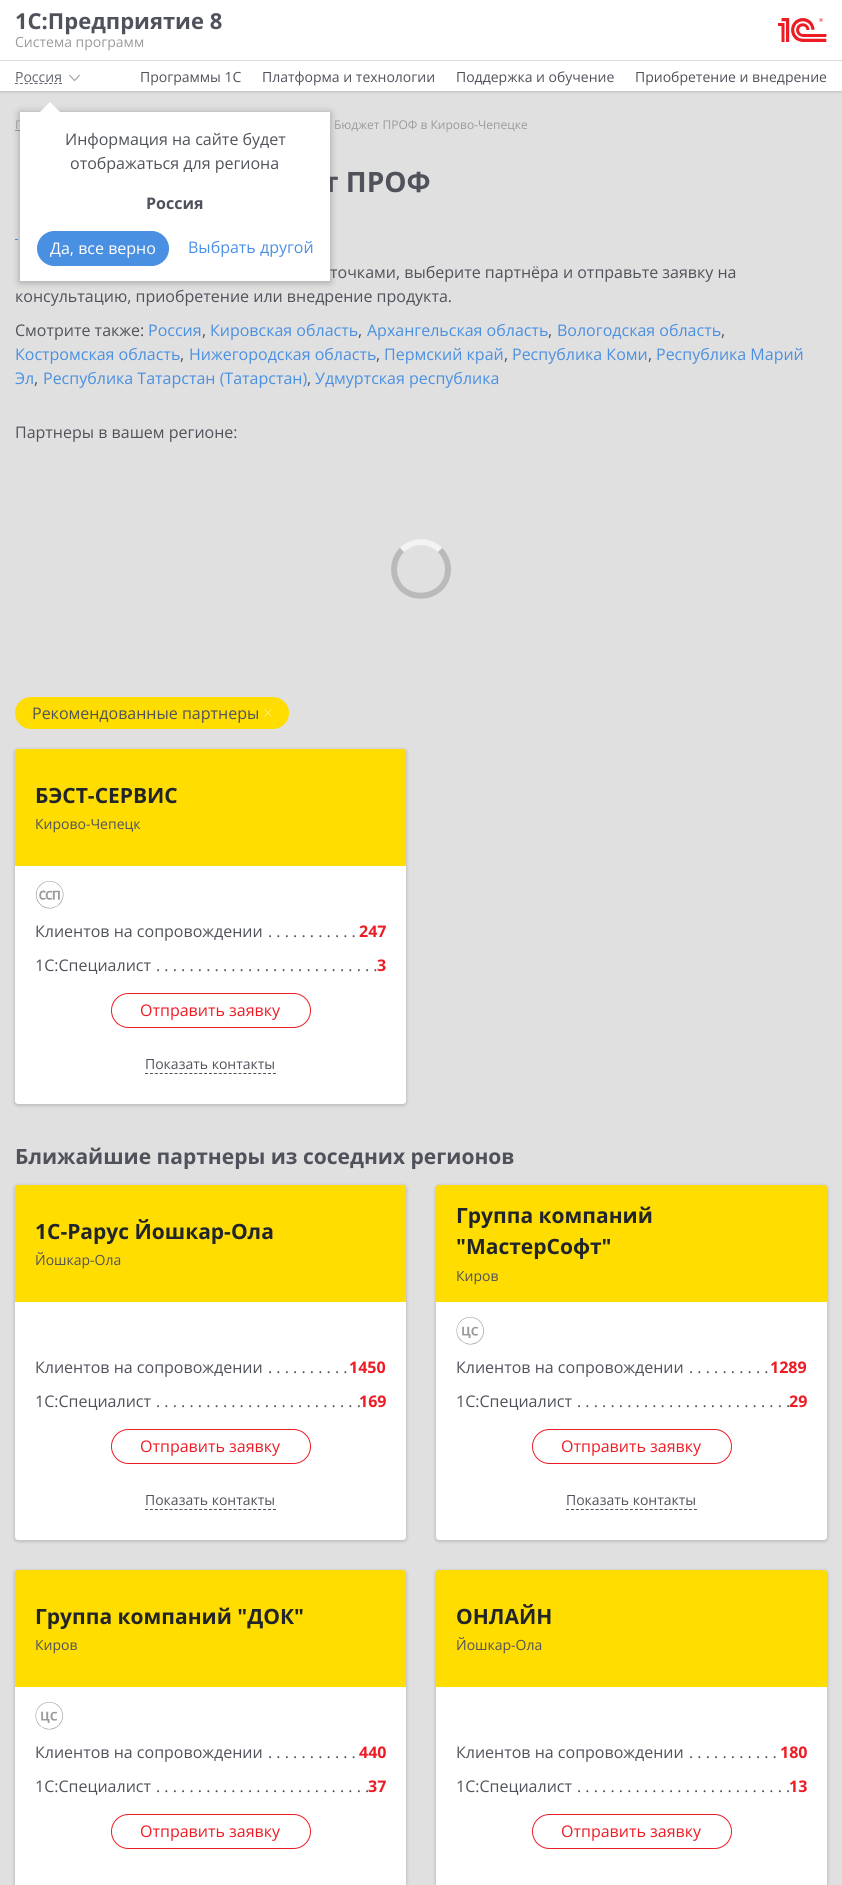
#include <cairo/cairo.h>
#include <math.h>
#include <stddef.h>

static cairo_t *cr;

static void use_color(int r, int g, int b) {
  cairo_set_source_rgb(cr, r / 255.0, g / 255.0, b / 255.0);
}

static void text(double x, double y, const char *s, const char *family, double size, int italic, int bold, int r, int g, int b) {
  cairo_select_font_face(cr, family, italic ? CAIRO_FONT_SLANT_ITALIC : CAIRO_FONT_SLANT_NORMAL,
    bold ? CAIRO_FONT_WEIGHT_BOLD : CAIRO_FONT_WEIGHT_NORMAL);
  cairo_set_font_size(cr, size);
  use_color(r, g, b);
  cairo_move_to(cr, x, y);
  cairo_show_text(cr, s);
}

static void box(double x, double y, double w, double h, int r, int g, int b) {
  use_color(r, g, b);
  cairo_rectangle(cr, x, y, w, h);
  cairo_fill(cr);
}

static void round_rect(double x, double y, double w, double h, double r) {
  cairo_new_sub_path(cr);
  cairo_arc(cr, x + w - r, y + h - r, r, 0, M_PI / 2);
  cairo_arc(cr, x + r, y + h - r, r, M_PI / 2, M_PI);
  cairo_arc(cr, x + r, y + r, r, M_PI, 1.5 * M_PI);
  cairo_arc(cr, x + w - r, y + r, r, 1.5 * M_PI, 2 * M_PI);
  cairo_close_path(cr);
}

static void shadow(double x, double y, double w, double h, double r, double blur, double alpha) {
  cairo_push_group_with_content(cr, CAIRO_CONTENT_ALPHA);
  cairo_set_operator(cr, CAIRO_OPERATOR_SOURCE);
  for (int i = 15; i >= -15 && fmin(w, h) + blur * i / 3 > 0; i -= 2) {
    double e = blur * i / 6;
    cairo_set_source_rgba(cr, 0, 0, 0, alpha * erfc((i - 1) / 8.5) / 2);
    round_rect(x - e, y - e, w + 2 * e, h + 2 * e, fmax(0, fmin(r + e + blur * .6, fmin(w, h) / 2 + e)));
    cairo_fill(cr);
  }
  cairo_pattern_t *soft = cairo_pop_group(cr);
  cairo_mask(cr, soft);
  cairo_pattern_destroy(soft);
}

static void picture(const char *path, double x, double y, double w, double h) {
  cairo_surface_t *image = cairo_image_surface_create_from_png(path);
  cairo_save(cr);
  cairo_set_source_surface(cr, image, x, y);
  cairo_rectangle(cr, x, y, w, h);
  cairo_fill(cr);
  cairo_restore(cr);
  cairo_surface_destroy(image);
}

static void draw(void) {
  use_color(255, 255, 255);
  cairo_paint(cr);
  box(0, 91, 842, 1794, 224, 224, 224);
  cairo_save(cr);
  cairo_rectangle(cr, 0, 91, 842, 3);
  cairo_clip(cr);
  use_color(0, 0, 0);
  shadow(0, 0, 842, 91, 0, 2, 0.25);
  cairo_restore(cr);
  box(0, 60, 842, 1, 218, 218, 218);
  picture("img_01.png", 778, 18, 49, 24);
  cairo_new_path(cr);
  cairo_move_to(cr, 15, 83.5);
  cairo_line_to(cr, 62, 83.5);
  use_color(100, 103, 112);
  cairo_set_line_width(cr, 1);
  cairo_set_dash(cr, (double[]){3, 1.89}, 2, 0);
  cairo_stroke(cr);
  picture("img_02.png", 69, 74, 11, 8);
  box(15, 130, 5, 1, 155, 155, 155);
  cairo_new_path(cr);
  cairo_move_to(cr, 15, 239.5);
  cairo_line_to(cr, 265, 239.5);
  use_color(74, 144, 226);
  cairo_set_dash(cr, (double[]){3, 2.04}, 2, 0);
  cairo_stroke(cr);
  use_color(0, 0, 0);
  shadow(20, 113, 310, 169, 0, 4, 0.3);
  use_color(255, 255, 255);
  cairo_new_path(cr);
  cairo_move_to(cr, 60, 112);
  cairo_line_to(cr, 40, 112);
  cairo_line_to(cr, 50, 102);
  cairo_close_path(cr);
  cairo_fill(cr);
  cairo_new_path(cr);
  cairo_move_to(cr, 402, 550);
  cairo_curve_to(cr, 412.5, 539.5, 429.5, 539.5, 440, 550);
  use_color(243, 243, 243);
  cairo_set_line_width(cr, 6);
  cairo_set_dash(cr, NULL, 0, 0);
  cairo_stroke(cr);
  cairo_new_path(cr);
  cairo_move_to(cr, 440, 550);
  cairo_curve_to(cr, 445, 555, 448, 562, 448, 569);
  cairo_curve_to(cr, 448, 601, 401, 606, 394.5, 574.5);
  cairo_curve_to(cr, 393, 565.5, 395.5, 556, 402, 550);
  cairo_set_source_rgba(cr, 0.584, 0.584, 0.584, 0.5);
  cairo_stroke(cr);
  use_color(255, 221, 0);
  round_rect(16, 698, 272, 30, 15);
  cairo_fill_preserve(cr);
  cairo_set_line_width(cr, 2);
  cairo_stroke(cr);
  picture("img_03.png", 264, 709, 8, 8);
  use_color(0, 0, 0);
  shadow(14, 749, 393, 357, 4, 1.5, 0.15);
  use_color(255, 221, 0);
  cairo_new_path(cr);
  cairo_move_to(cr, 18, 749);
  cairo_line_to(cr, 403, 749);
  cairo_curve_to(cr, 404.5, 749, 406, 750.5, 406, 752);
  cairo_line_to(cr, 406, 866);
  cairo_line_to(cr, 15, 866);
  cairo_line_to(cr, 15, 752);
  cairo_curve_to(cr, 15, 750.5, 16.5, 749, 18, 749);
  cairo_close_path(cr);
  cairo_fill(cr);
  use_color(255, 255, 255);
  cairo_new_path(cr);
  cairo_move_to(cr, 15, 866);
  cairo_line_to(cr, 406, 866);
  cairo_line_to(cr, 406, 1101);
  cairo_curve_to(cr, 406, 1102.5, 404.5, 1104, 403, 1104);
  cairo_line_to(cr, 18, 1104);
  cairo_curve_to(cr, 16.5, 1104, 15, 1102.5, 15, 1101);
  cairo_close_path(cr);
  cairo_fill(cr);
  picture("img_04.png", 35, 881, 29, 28);
  round_rect(111.5, 993.5, 199, 34, 17);
  use_color(237, 28, 36);
  cairo_set_line_width(cr, 1);
  cairo_stroke(cr);
  cairo_new_path(cr);
  cairo_move_to(cr, 145, 1073.5);
  cairo_line_to(cr, 276, 1073.5);
  use_color(80, 82, 91);
  cairo_set_dash(cr, (double[]){3, 1.92}, 2, 0);
  cairo_stroke(cr);
  use_color(0, 0, 0);
  shadow(14, 1185, 393, 357, 4, 1.5, 0.15);
  use_color(255, 221, 0);
  cairo_new_path(cr);
  cairo_move_to(cr, 18, 1185);
  cairo_line_to(cr, 403, 1185);
  cairo_curve_to(cr, 404.5, 1185, 406, 1186.5, 406, 1188);
  cairo_line_to(cr, 406, 1302);
  cairo_line_to(cr, 15, 1302);
  cairo_line_to(cr, 15, 1188);
  cairo_curve_to(cr, 15, 1186.5, 16.5, 1185, 18, 1185);
  cairo_close_path(cr);
  cairo_fill(cr);
  use_color(255, 255, 255);
  cairo_new_path(cr);
  cairo_move_to(cr, 15, 1302);
  cairo_line_to(cr, 406, 1302);
  cairo_line_to(cr, 406, 1537);
  cairo_curve_to(cr, 406, 1538.5, 404.5, 1540, 403, 1540);
  cairo_line_to(cr, 18, 1540);
  cairo_curve_to(cr, 16.5, 1540, 15, 1538.5, 15, 1537);
  cairo_close_path(cr);
  cairo_fill(cr);
  round_rect(111.5, 1429.5, 199, 34, 17);
  use_color(237, 28, 36);
  cairo_set_dash(cr, NULL, 0, 0);
  cairo_stroke(cr);
  cairo_new_path(cr);
  cairo_move_to(cr, 145, 1509.5);
  cairo_line_to(cr, 276, 1509.5);
  use_color(80, 82, 91);
  cairo_set_dash(cr, (double[]){3, 1.92}, 2, 0);
  cairo_stroke(cr);
  use_color(0, 0, 0);
  shadow(435, 1185, 393, 357, 4, 1.5, 0.15);
  use_color(255, 221, 0);
  cairo_new_path(cr);
  cairo_move_to(cr, 439, 1185);
  cairo_line_to(cr, 824, 1185);
  cairo_curve_to(cr, 825.5, 1185, 827, 1186.5, 827, 1188);
  cairo_line_to(cr, 827, 1302);
  cairo_line_to(cr, 436, 1302);
  cairo_line_to(cr, 436, 1188);
  cairo_curve_to(cr, 436, 1186.5, 437.5, 1185, 439, 1185);
  cairo_close_path(cr);
  cairo_fill(cr);
  use_color(255, 255, 255);
  cairo_new_path(cr);
  cairo_move_to(cr, 436, 1302);
  cairo_line_to(cr, 827, 1302);
  cairo_line_to(cr, 827, 1537);
  cairo_curve_to(cr, 827, 1538.5, 825.5, 1540, 824, 1540);
  cairo_line_to(cr, 439, 1540);
  cairo_curve_to(cr, 437.5, 1540, 436, 1538.5, 436, 1537);
  cairo_close_path(cr);
  cairo_fill(cr);
  picture("img_05.png", 456, 1317, 28, 28);
  round_rect(532.5, 1429.5, 199, 34, 17);
  use_color(237, 28, 36);
  cairo_set_dash(cr, NULL, 0, 0);
  cairo_stroke(cr);
  cairo_new_path(cr);
  cairo_move_to(cr, 566, 1509.5);
  cairo_line_to(cr, 697, 1509.5);
  use_color(80, 82, 91);
  cairo_set_dash(cr, (double[]){3, 1.92}, 2, 0);
  cairo_stroke(cr);
  use_color(0, 0, 0);
  shadow(14, 1570, 393, 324, 4, 1.5, 0.15);
  use_color(255, 221, 0);
  cairo_new_path(cr);
  cairo_move_to(cr, 18, 1570);
  cairo_line_to(cr, 403, 1570);
  cairo_curve_to(cr, 404.5, 1570, 406, 1571.5, 406, 1573);
  cairo_line_to(cr, 406, 1687);
  cairo_line_to(cr, 15, 1687);
  cairo_line_to(cr, 15, 1573);
  cairo_curve_to(cr, 15, 1571.5, 16.5, 1570, 18, 1570);
  cairo_close_path(cr);
  cairo_fill(cr);
  box(15, 1687, 391, 198, 255, 255, 255);
  picture("img_05.png", 35, 1702, 28, 28);
  round_rect(111.5, 1814.5, 199, 34, 17);
  use_color(237, 28, 36);
  cairo_set_dash(cr, NULL, 0, 0);
  cairo_stroke(cr);
  use_color(0, 0, 0);
  shadow(435, 1570, 393, 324, 4, 1.5, 0.15);
  use_color(255, 221, 0);
  cairo_new_path(cr);
  cairo_move_to(cr, 439, 1570);
  cairo_line_to(cr, 824, 1570);
  cairo_curve_to(cr, 825.5, 1570, 827, 1571.5, 827, 1573);
  cairo_line_to(cr, 827, 1687);
  cairo_line_to(cr, 436, 1687);
  cairo_line_to(cr, 436, 1573);
  cairo_curve_to(cr, 436, 1571.5, 437.5, 1570, 439, 1570);
  cairo_close_path(cr);
  cairo_fill(cr);
  box(436, 1687, 391, 198, 255, 255, 255);
  round_rect(532.5, 1814.5, 199, 34, 17);
  use_color(237, 28, 36);
  cairo_stroke(cr);
  text(15, 29, "1С:Предприятие 8", "Open Sans", 22, 0, 1, 80, 82, 91);
  text(15, 47, "Система программ", "Open Sans", 14, 0, 0, 155, 155, 155);
  text(140, 82, "Программы 1С", "Open Sans", 14, 0, 0, 80, 82, 91);
  text(262, 82, "Платформа и технологии", "Open Sans", 14, 0, 0, 80, 82, 91);
  text(456, 82, "Поддержка и обучение", "Open Sans", 14, 0, 0, 80, 82, 91);
  text(635, 82, "Приобретение и внедрение", "Open Sans", 14, 0, 0, 80, 82, 91);
  text(15, 82, "Россия", "Open Sans", 14, 0, 0, 100, 103, 112);
  text(15, 129, "Г", "Open Sans", 12, 0, 0, 155, 155, 155);
  text(334, 129, "Бюджет ПРОФ в Кирово-Чепецке", "Open Sans", 12, 0, 0, 155, 155, 155);
  text(323, 192, "т ПРОФ", "Open Sans", 28, 0, 1, 80, 82, 91);
  box(20, 112, 310, 169, 255, 255, 255);
  text(188, 253, "Выбрать другой", "Open Sans", 16, 0, 0, 74, 144, 226);
  round_rect(37.5, 231.5, 131, 34, 17);
  cairo_fill_preserve(cr);
  cairo_stroke(cr);
  text(50, 254, "Да, все верно", "Open Sans", 16, 0, 0, 255, 255, 255);
  text(146, 209, "Россия", "Open Sans", 16, 0, 1, 80, 82, 91);
  text(70, 169, "отображаться для региона", "Open Sans", 16, 0, 0, 80, 82, 91);
  text(65, 145, "Информация на сайте будет", "Open Sans", 16, 0, 0, 80, 82, 91);
  text(330, 278, "точками, выберите партнёра и отправьте заявку на", "Open Sans", 16, 0, 0, 80, 82, 91);
  text(15, 302, "консультацию, приобретение или внедрение продукта.", "Open Sans", 16, 0, 0, 80, 82, 91);
  text(15, 336, "Смотрите также:", "Open Sans", 16, 0, 0, 80, 82, 91);
  text(148, 336, "Россия", "Open Sans", 16, 0, 0, 74, 144, 226);
  text(202, 336, ",", "Open Sans", 16, 0, 0, 80, 82, 91);
  text(210, 336, "Кировская область", "Open Sans", 16, 0, 0, 74, 144, 226);
  text(358, 336, ",", "Open Sans", 16, 0, 0, 80, 82, 91);
  text(367, 336, "Архангельская область", "Open Sans", 16, 0, 0, 74, 144, 226);
  text(548, 336, ",", "Open Sans", 16, 0, 0, 80, 82, 91);
  text(557, 336, "Вологодская область", "Open Sans", 16, 0, 0, 74, 144, 226);
  text(721, 336, ",", "Open Sans", 16, 0, 0, 80, 82, 91);
  text(15, 360, "Костромская область", "Open Sans", 16, 0, 0, 74, 144, 226);
  text(180, 360, ",", "Open Sans", 16, 0, 0, 80, 82, 91);
  text(189, 360, "Нижегородская область", "Open Sans", 16, 0, 0, 74, 144, 226);
  text(376, 360, ",", "Open Sans", 16, 0, 0, 80, 82, 91);
  text(384, 360, "Пермский край", "Open Sans", 16, 0, 0, 74, 144, 226);
  text(504, 360, ",", "Open Sans", 16, 0, 0, 80, 82, 91);
  text(512, 360, "Республика Коми", "Open Sans", 16, 0, 0, 74, 144, 226);
  text(648, 360, ",", "Open Sans", 16, 0, 0, 80, 82, 91);
  text(656, 360, "Республика Марий", "Open Sans", 16, 0, 0, 74, 144, 226);
  text(15, 384, "Эл", "Open Sans", 16, 0, 0, 74, 144, 226);
  text(34, 384, ",", "Open Sans", 16, 0, 0, 80, 82, 91);
  text(43, 384, "Республика Татарстан (Татарстан)", "Open Sans", 16, 0, 0, 74, 144, 226);
  text(307, 384, ",", "Open Sans", 16, 0, 0, 80, 82, 91);
  text(315, 384, "Удмуртская республика", "Open Sans", 16, 0, 0, 74, 144, 226);
  text(15, 438, "Партнеры в вашем регионе:", "Open Sans", 16, 0, 0, 80, 82, 91);
  text(32, 719, "Рекомендованные партнеры", "Open Sans", 16, 0, 0, 80, 82, 91);
  text(35, 803, "БЭСТ-СЕРВИС", "Open Sans", 21, 0, 1, 33, 37, 41);
  text(35, 829, "Кирово-Чепецк", "Open Sans", 14, 0, 0, 80, 82, 91);
  text(35, 937, "Клиентов на сопровождении", "Open Sans", 16, 0, 0, 80, 82, 91);
  text(268, 937, ". . . . . . . . . . .", "Open Sans", 16, 0, 0, 80, 82, 91);
  text(359, 937, "247", "Open Sans", 16, 0, 1, 237, 28, 36);
  text(35, 971, "1С:Специалист", "Open Sans", 16, 0, 0, 80, 82, 91);
  text(156, 971, ". . . . . . . . . . . . . . . . . . . . . . . . . . .", "Open Sans", 16, 0, 0, 80, 82, 91);
  text(377, 971, "3", "Open Sans", 16, 0, 1, 237, 28, 36);
  text(140, 1016, "Отправить заявку", "Open Sans", 16, 0, 0, 237, 28, 36);
  text(145, 1069, "Показать контакты", "Open Sans", 14, 0, 0, 80, 82, 91);
  text(15, 1164, "Ближайшие партнеры из соседних регионов", "Open Sans", 21, 0, 1, 80, 82, 91);
  text(35, 1239, "1С-Рарус Йошкар-Ола", "Open Sans", 21, 0, 1, 33, 37, 41);
  text(35, 1265, "Йошкар-Ола", "Open Sans", 14, 0, 0, 80, 82, 91);
  text(35, 1373, "Клиентов на сопровождении", "Open Sans", 16, 0, 0, 80, 82, 91);
  text(268, 1373, ". . . . . . . . . .", "Open Sans", 16, 0, 0, 80, 82, 91);
  text(349, 1373, "1450", "Open Sans", 16, 0, 1, 237, 28, 36);
  text(35, 1407, "1С:Специалист", "Open Sans", 16, 0, 0, 80, 82, 91);
  text(156, 1407, ". . . . . . . . . . . . . . . . . . . . . . . . .", "Open Sans", 16, 0, 0, 80, 82, 91);
  text(359, 1407, "169", "Open Sans", 16, 0, 1, 237, 28, 36);
  text(140, 1452, "Отправить заявку", "Open Sans", 16, 0, 0, 237, 28, 36);
  text(145, 1505, "Показать контакты", "Open Sans", 14, 0, 0, 80, 82, 91);
  text(456, 1223, "Группа компаний", "Open Sans", 21, 0, 1, 33, 37, 41);
  text(456, 1254, "\"МастерСофт\"", "Open Sans", 21, 0, 1, 33, 37, 41);
  text(456, 1281, "Киров", "Open Sans", 14, 0, 0, 80, 82, 91);
  text(456, 1373, "Клиентов на сопровождении", "Open Sans", 16, 0, 0, 80, 82, 91);
  text(689, 1373, ". . . . . . . . . .", "Open Sans", 16, 0, 0, 80, 82, 91);
  text(770, 1373, "1289", "Open Sans", 16, 0, 1, 237, 28, 36);
  text(456, 1407, "1С:Специалист", "Open Sans", 16, 0, 0, 80, 82, 91);
  text(577, 1407, ". . . . . . . . . . . . . . . . . . . . . . . . . .", "Open Sans", 16, 0, 0, 80, 82, 91);
  text(789, 1407, "29", "Open Sans", 16, 0, 1, 237, 28, 36);
  text(561, 1452, "Отправить заявку", "Open Sans", 16, 0, 0, 237, 28, 36);
  text(566, 1505, "Показать контакты", "Open Sans", 14, 0, 0, 80, 82, 91);
  text(35, 1624, "Группа компаний \"ДОК\"", "Open Sans", 21, 0, 1, 33, 37, 41);
  text(35, 1650, "Киров", "Open Sans", 14, 0, 0, 80, 82, 91);
  text(35, 1758, "Клиентов на сопровождении", "Open Sans", 16, 0, 0, 80, 82, 91);
  text(268, 1758, ". . . . . . . . . . .", "Open Sans", 16, 0, 0, 80, 82, 91);
  text(359, 1758, "440", "Open Sans", 16, 0, 1, 237, 28, 36);
  text(35, 1792, "1С:Специалист", "Open Sans", 16, 0, 0, 80, 82, 91);
  text(156, 1792, ". . . . . . . . . . . . . . . . . . . . . . . . . .", "Open Sans", 16, 0, 0, 80, 82, 91);
  text(368, 1792, "37", "Open Sans", 16, 0, 1, 237, 28, 36);
  text(140, 1837, "Отправить заявку", "Open Sans", 16, 0, 0, 237, 28, 36);
  text(456, 1624, "ОНЛАЙН", "Open Sans", 21, 0, 1, 33, 37, 41);
  text(456, 1650, "Йошкар-Ола", "Open Sans", 14, 0, 0, 80, 82, 91);
  text(456, 1758, "Клиентов на сопровождении", "Open Sans", 16, 0, 0, 80, 82, 91);
  text(689, 1758, ". . . . . . . . . . .", "Open Sans", 16, 0, 0, 80, 82, 91);
  text(780, 1758, "180", "Open Sans", 16, 0, 1, 237, 28, 36);
  text(456, 1792, "1С:Специалист", "Open Sans", 16, 0, 0, 80, 82, 91);
  text(577, 1792, ". . . . . . . . . . . . . . . . . . . . . . . . . .", "Open Sans", 16, 0, 0, 80, 82, 91);
  text(789, 1792, "13", "Open Sans", 16, 0, 1, 237, 28, 36);
  text(561, 1837, "Отправить заявку", "Open Sans", 16, 0, 0, 237, 28, 36);
}

int main(void) {
  cairo_surface_t *surface = cairo_image_surface_create(CAIRO_FORMAT_RGB24, 842, 1885);
  cr = cairo_create(surface);
  cairo_font_options_t *options = cairo_font_options_create();
  cairo_font_options_set_hint_metrics(options, CAIRO_HINT_METRICS_OFF);
  cairo_font_options_set_hint_style(options, CAIRO_HINT_STYLE_NONE);
  cairo_set_font_options(cr, options);
  cairo_set_miter_limit(cr, 4);
  draw();
  cairo_surface_write_to_png(surface, "out.png");
  cairo_font_options_destroy(options);
  cairo_destroy(cr);
  cairo_surface_destroy(surface);
  return 0;
}
